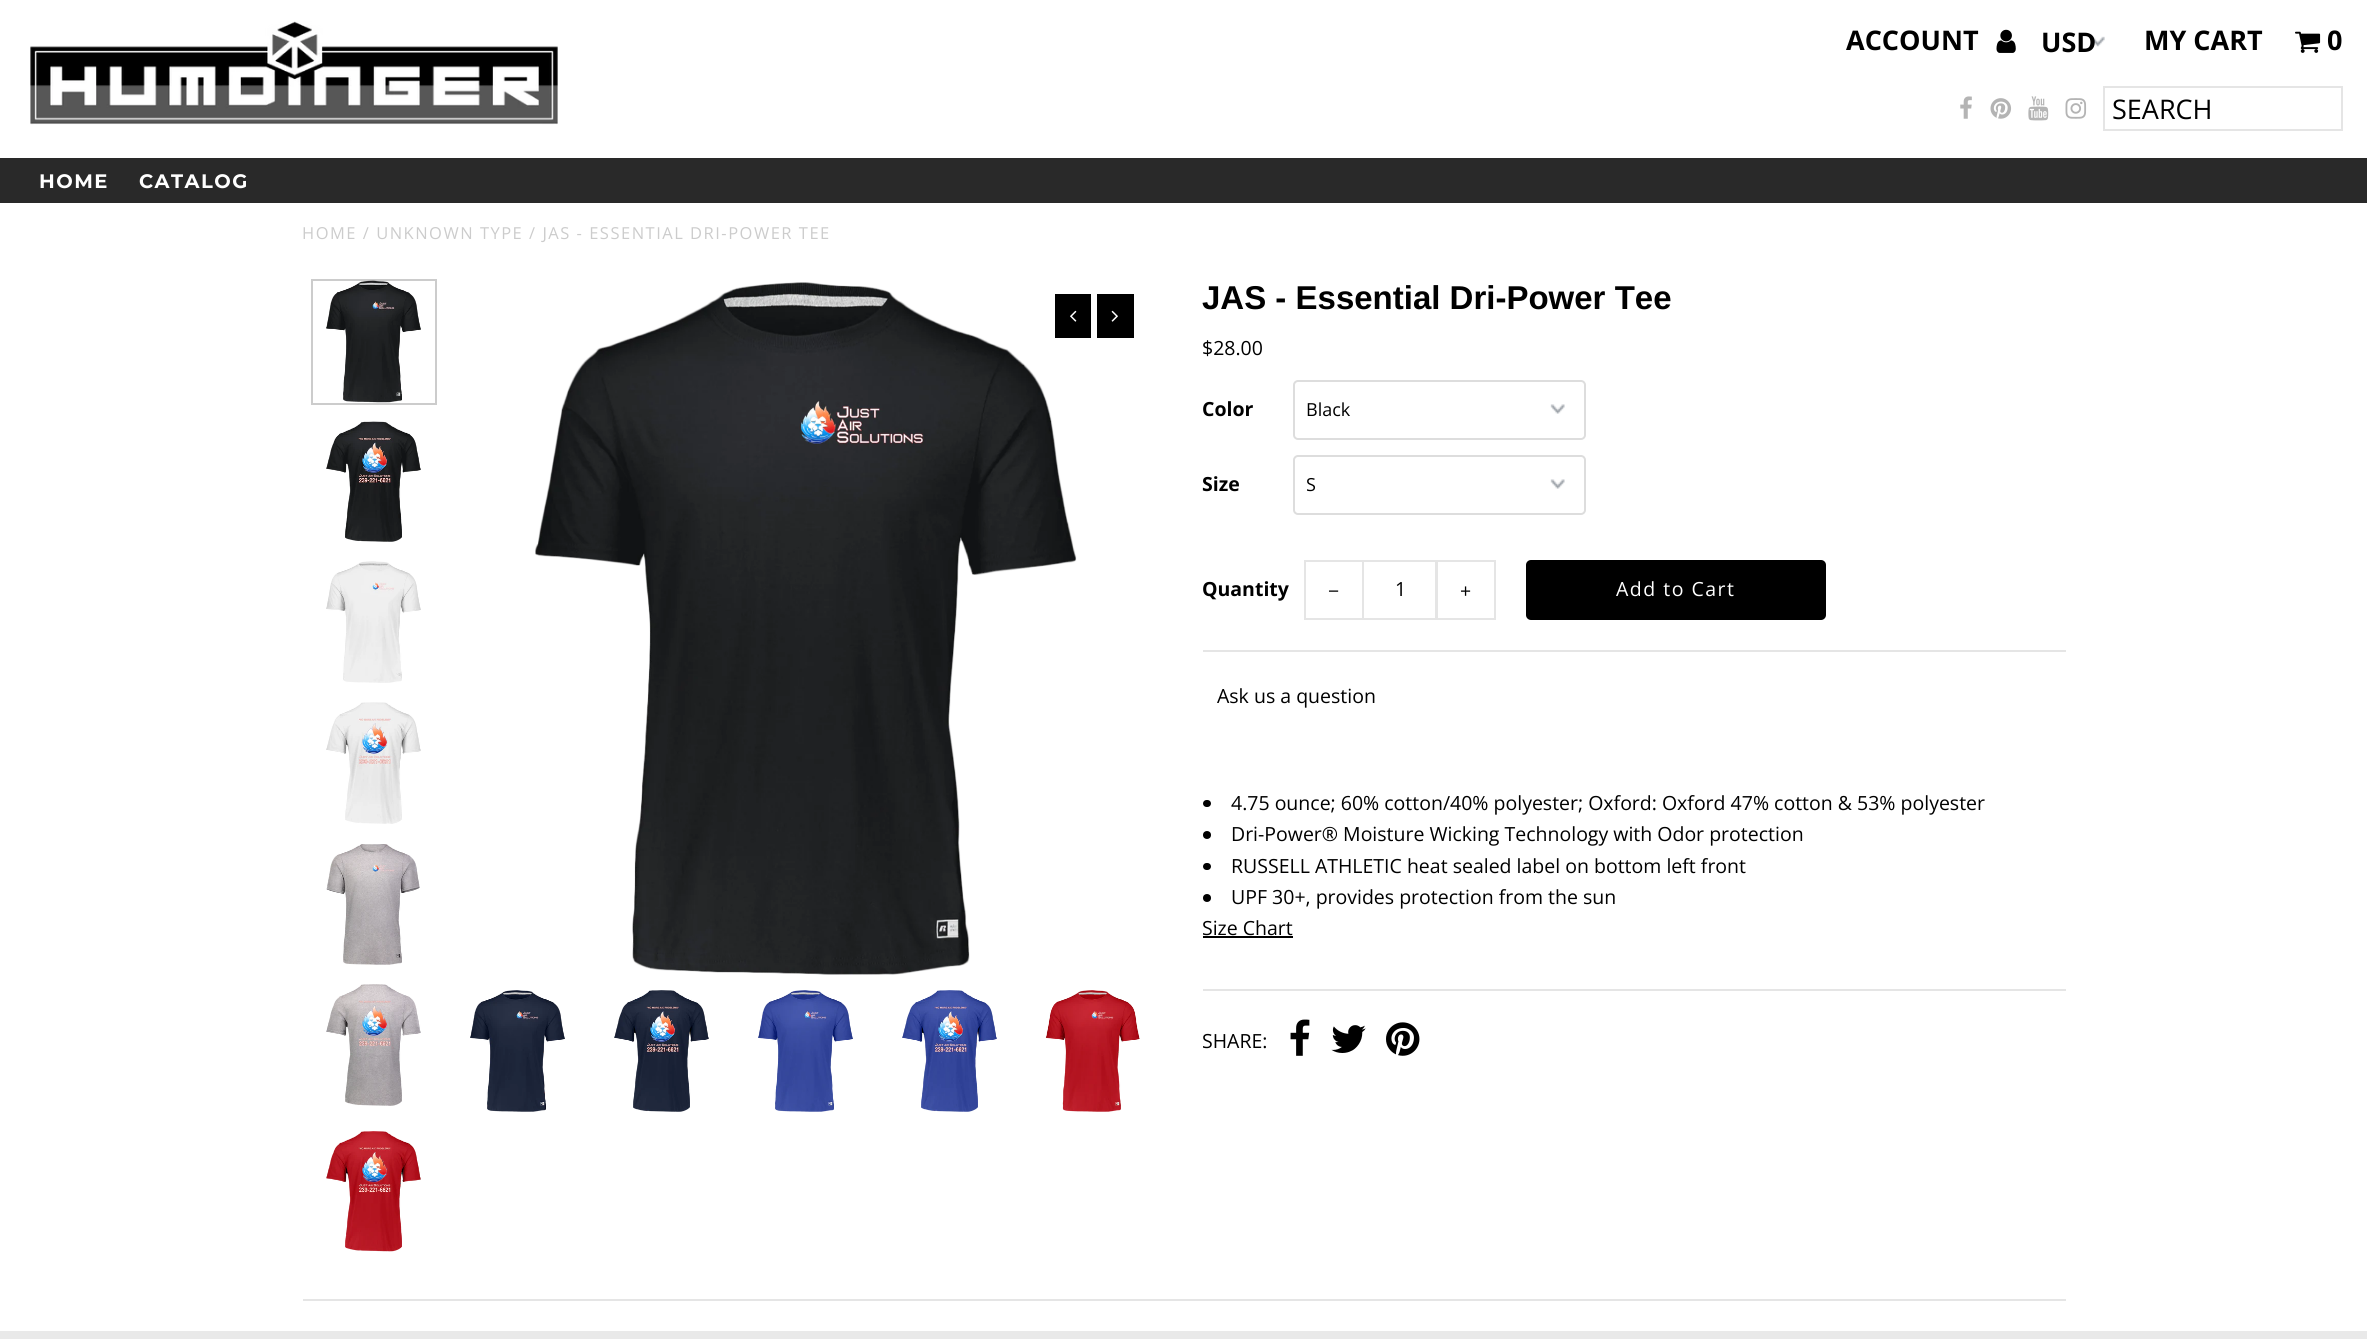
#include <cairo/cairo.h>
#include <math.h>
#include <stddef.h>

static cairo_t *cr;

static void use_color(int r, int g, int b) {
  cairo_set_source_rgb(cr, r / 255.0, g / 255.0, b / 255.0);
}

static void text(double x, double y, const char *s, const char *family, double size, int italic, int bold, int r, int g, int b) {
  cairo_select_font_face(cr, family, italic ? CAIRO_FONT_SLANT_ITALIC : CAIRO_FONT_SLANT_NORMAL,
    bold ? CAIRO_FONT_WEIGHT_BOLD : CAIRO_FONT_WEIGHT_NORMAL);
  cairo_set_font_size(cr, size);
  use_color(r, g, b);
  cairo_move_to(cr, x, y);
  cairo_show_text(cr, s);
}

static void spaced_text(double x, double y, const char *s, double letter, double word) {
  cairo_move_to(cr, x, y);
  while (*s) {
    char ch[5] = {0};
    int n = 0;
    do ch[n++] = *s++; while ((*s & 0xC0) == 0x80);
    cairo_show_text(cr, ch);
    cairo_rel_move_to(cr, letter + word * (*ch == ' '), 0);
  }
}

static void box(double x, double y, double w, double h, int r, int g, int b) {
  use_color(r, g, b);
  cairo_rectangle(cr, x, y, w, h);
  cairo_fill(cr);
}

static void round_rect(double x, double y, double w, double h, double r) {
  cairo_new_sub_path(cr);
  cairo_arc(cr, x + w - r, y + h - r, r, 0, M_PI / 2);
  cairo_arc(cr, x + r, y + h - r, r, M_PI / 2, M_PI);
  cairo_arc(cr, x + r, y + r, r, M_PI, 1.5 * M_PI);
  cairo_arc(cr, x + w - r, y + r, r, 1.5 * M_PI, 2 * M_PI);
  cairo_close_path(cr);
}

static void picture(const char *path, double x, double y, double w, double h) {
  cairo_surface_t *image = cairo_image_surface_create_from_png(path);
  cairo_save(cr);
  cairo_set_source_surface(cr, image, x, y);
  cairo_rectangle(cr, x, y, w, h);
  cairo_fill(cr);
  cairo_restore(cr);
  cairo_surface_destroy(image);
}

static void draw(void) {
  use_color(255, 255, 255);
  cairo_paint(cr);
  picture("img_01.png", 30, 21, 528, 104);
  picture("img_02.png", 1996, 29, 20, 24);
  picture("img_03.png", 2090, 36, 15, 11);
  picture("img_04.png", 2295, 31, 26, 22);
  picture("img_05.png", 1960, 96, 12, 23);
  picture("img_06.png", 1990, 98, 22, 21);
  picture("img_07.png", 2028, 96, 21, 25);
  picture("img_08.png", 2065, 98, 22, 21);
  cairo_rectangle(cr, 2104, 87, 238, 43);
  use_color(229, 229, 229);
  cairo_stroke(cr);
  box(0, 158, 2367, 45, 41, 41, 41);
  cairo_rectangle(cr, 312, 280, 124, 124);
  use_color(204, 204, 204);
  cairo_stroke(cr);
  picture("img_09.png", 326, 280, 95, 123);
  picture("img_10.png", 326, 421, 95, 121);
  picture("img_11.png", 326, 561, 95, 122);
  picture("img_12.png", 326, 702, 95, 122);
  picture("img_13.png", 326, 844, 94, 121);
  picture("img_14.png", 326, 984, 95, 122);
  picture("img_15.png", 470, 990, 95, 122);
  picture("img_16.png", 614, 990, 95, 122);
  picture("img_17.png", 758, 990, 95, 122);
  picture("img_18.png", 902, 990, 95, 122);
  picture("img_19.png", 1045, 990, 95, 122);
  picture("img_20.png", 326, 1131, 95, 121);
  picture("img_21.png", 535, 282, 542, 693);
  box(1055, 294, 36, 44, 0, 0, 0);
  picture("img_22.png", 1070, 310, 7, 12);
  box(1097, 294, 37, 44, 0, 0, 0);
  picture("img_23.png", 1111, 310, 7, 12);
  box(1203, 650, 863, 2, 229, 229, 229);
  picture("img_24.png", 1550, 404, 15, 10);
  round_rect(1294, 381, 291, 58, 4);
  use_color(221, 221, 221);
  cairo_stroke(cr);
  picture("img_24.png", 1550, 479, 15, 10);
  round_rect(1294, 456, 291, 58, 4);
  cairo_stroke(cr);
  cairo_rectangle(cr, 1305, 561, 58, 58);
  use_color(229, 229, 229);
  cairo_stroke(cr);
  cairo_rectangle(cr, 1363, 561, 73, 58);
  cairo_stroke(cr);
  cairo_rectangle(cr, 1437, 561, 58, 58);
  cairo_stroke(cr);
  use_color(0, 0, 0);
  round_rect(1526, 560, 300, 60, 5);
  cairo_fill(cr);
  round_rect(1203, 800, 8, 7, 3.5);
  cairo_fill(cr);
  cairo_arc(cr, 1207, 835, 4, 0, 2 * M_PI);
  cairo_fill(cr);
  round_rect(1203, 863, 8, 7, 3.5);
  cairo_fill(cr);
  cairo_arc(cr, 1207, 898, 4, 0, 2 * M_PI);
  cairo_fill(cr);
  box(1203, 936, 90, 2, 0, 0, 0);
  box(1203, 989, 863, 2, 229, 229, 229);
  picture("img_25.png", 1290, 1019, 20, 37);
  picture("img_26.png", 1331, 1025, 35, 28);
  picture("img_27.png", 1386, 1022, 34, 34);
  box(303, 1299, 1763, 2, 229, 229, 229);
  box(0, 1331, 2367, 8, 233, 233, 233);
  text(1846, 50, "ACCOUNT", "Open Sans", 27, 0, 1, 0, 0, 0);
  text(2041, 52, "USD", "Open Sans", 27, 0, 1, 0, 0, 0);
  text(2144, 50, "MY CART", "Open Sans", 27, 0, 1, 0, 0, 0);
  text(2327, 50, "0", "Open Sans", 27, 0, 1, 0, 0, 0);
  text(2112, 119, "SEARCH", "Open Sans", 27, 0, 0, 0, 0, 0);
  cairo_select_font_face(cr, "Montserrat", CAIRO_FONT_SLANT_NORMAL, CAIRO_FONT_WEIGHT_BOLD);
  cairo_set_font_size(cr, 19.5);
  use_color(255, 255, 255);
  spaced_text(39, 188, "HOME", 1.5, 0);
  spaced_text(139, 188, "CATALOG", 1.5, 0);
  cairo_select_font_face(cr, "Open Sans", CAIRO_FONT_SLANT_NORMAL, CAIRO_FONT_WEIGHT_NORMAL);
  cairo_set_font_size(cr, 16.5);
  use_color(204, 204, 204);
  spaced_text(302, 239, "HOME / UNKNOWN TYPE / JAS - ESSENTIAL DRI-POWER TEE", 1.5, 0);
  text(1202, 309, "JAS - Essential Dri-Power Tee", "Liberation Sans", 33, 0, 1, 0, 0, 0);
  text(1202, 355, "$28.00", "Open Sans", 19.5, 0, 0, 0, 0, 0);
  text(1202, 416, "Color", "Open Sans", 19.5, 0, 1, 0, 0, 0);
  text(1306, 416, "Black", "Open Sans", 18, 0, 0, 0, 0, 0);
  text(1202, 491, "Size", "Open Sans", 19.5, 0, 1, 0, 0, 0);
  cairo_save(cr);
  cairo_rectangle(cr, 1307, 471, 277, 26);
  cairo_clip(cr);
  text(1306, 491, "S", "Open Sans", 18, 0, 0, 0, 0, 0);
  cairo_restore(cr);
  text(1202, 596, "Quantity", "Open Sans", 19.5, 0, 1, 0, 0, 0);
  cairo_select_font_face(cr, "Open Sans", CAIRO_FONT_SLANT_NORMAL, CAIRO_FONT_WEIGHT_NORMAL);
  spaced_text(1328, 598, "−", 1.5, 0);
  text(1395, 596, "1", "Open Sans", 19.5, 0, 0, 0, 0, 0);
  spaced_text(1460, 598, "+", 1.5, 0);
  use_color(255, 255, 255);
  spaced_text(1616, 596, "Add to Cart", 1.5, 0);
  text(1217, 703, "Ask us a question", "Open Sans", 19.5, 0, 0, 0, 0, 0);
  text(1231, 810, "4.75 ounce; 60% cotton/40% polyester; Oxford: Oxford 47% cotton & 53% polyester", "Open Sans", 19.5, 0, 0, 0, 0, 0);
  text(1231, 841, "Dri-Power® Moisture Wicking Technology with Odor protection", "Open Sans", 19.5, 0, 0, 0, 0, 0);
  text(1231, 873, "RUSSELL ATHLETIC heat sealed label on bottom left front", "Open Sans", 19.5, 0, 0, 0, 0, 0);
  text(1231, 904, "UPF 30+, provides protection from the sun", "Open Sans", 19.5, 0, 0, 0, 0, 0);
  text(1202, 935, "Size Chart", "Open Sans", 19.5, 0, 0, 0, 0, 0);
  text(1202, 1048, "SHARE:", "Open Sans", 19.5, 0, 0, 0, 0, 0);
}

int main(void) {
  cairo_surface_t *surface = cairo_image_surface_create(CAIRO_FORMAT_RGB24, 2367, 1339);
  cr = cairo_create(surface);
  cairo_font_options_t *options = cairo_font_options_create();
  cairo_font_options_set_hint_metrics(options, CAIRO_HINT_METRICS_OFF);
  cairo_font_options_set_hint_style(options, CAIRO_HINT_STYLE_NONE);
  cairo_set_font_options(cr, options);
  cairo_set_miter_limit(cr, 4);
  draw();
  cairo_surface_write_to_png(surface, "out.png");
  cairo_font_options_destroy(options);
  cairo_destroy(cr);
  cairo_surface_destroy(surface);
  return 0;
}
